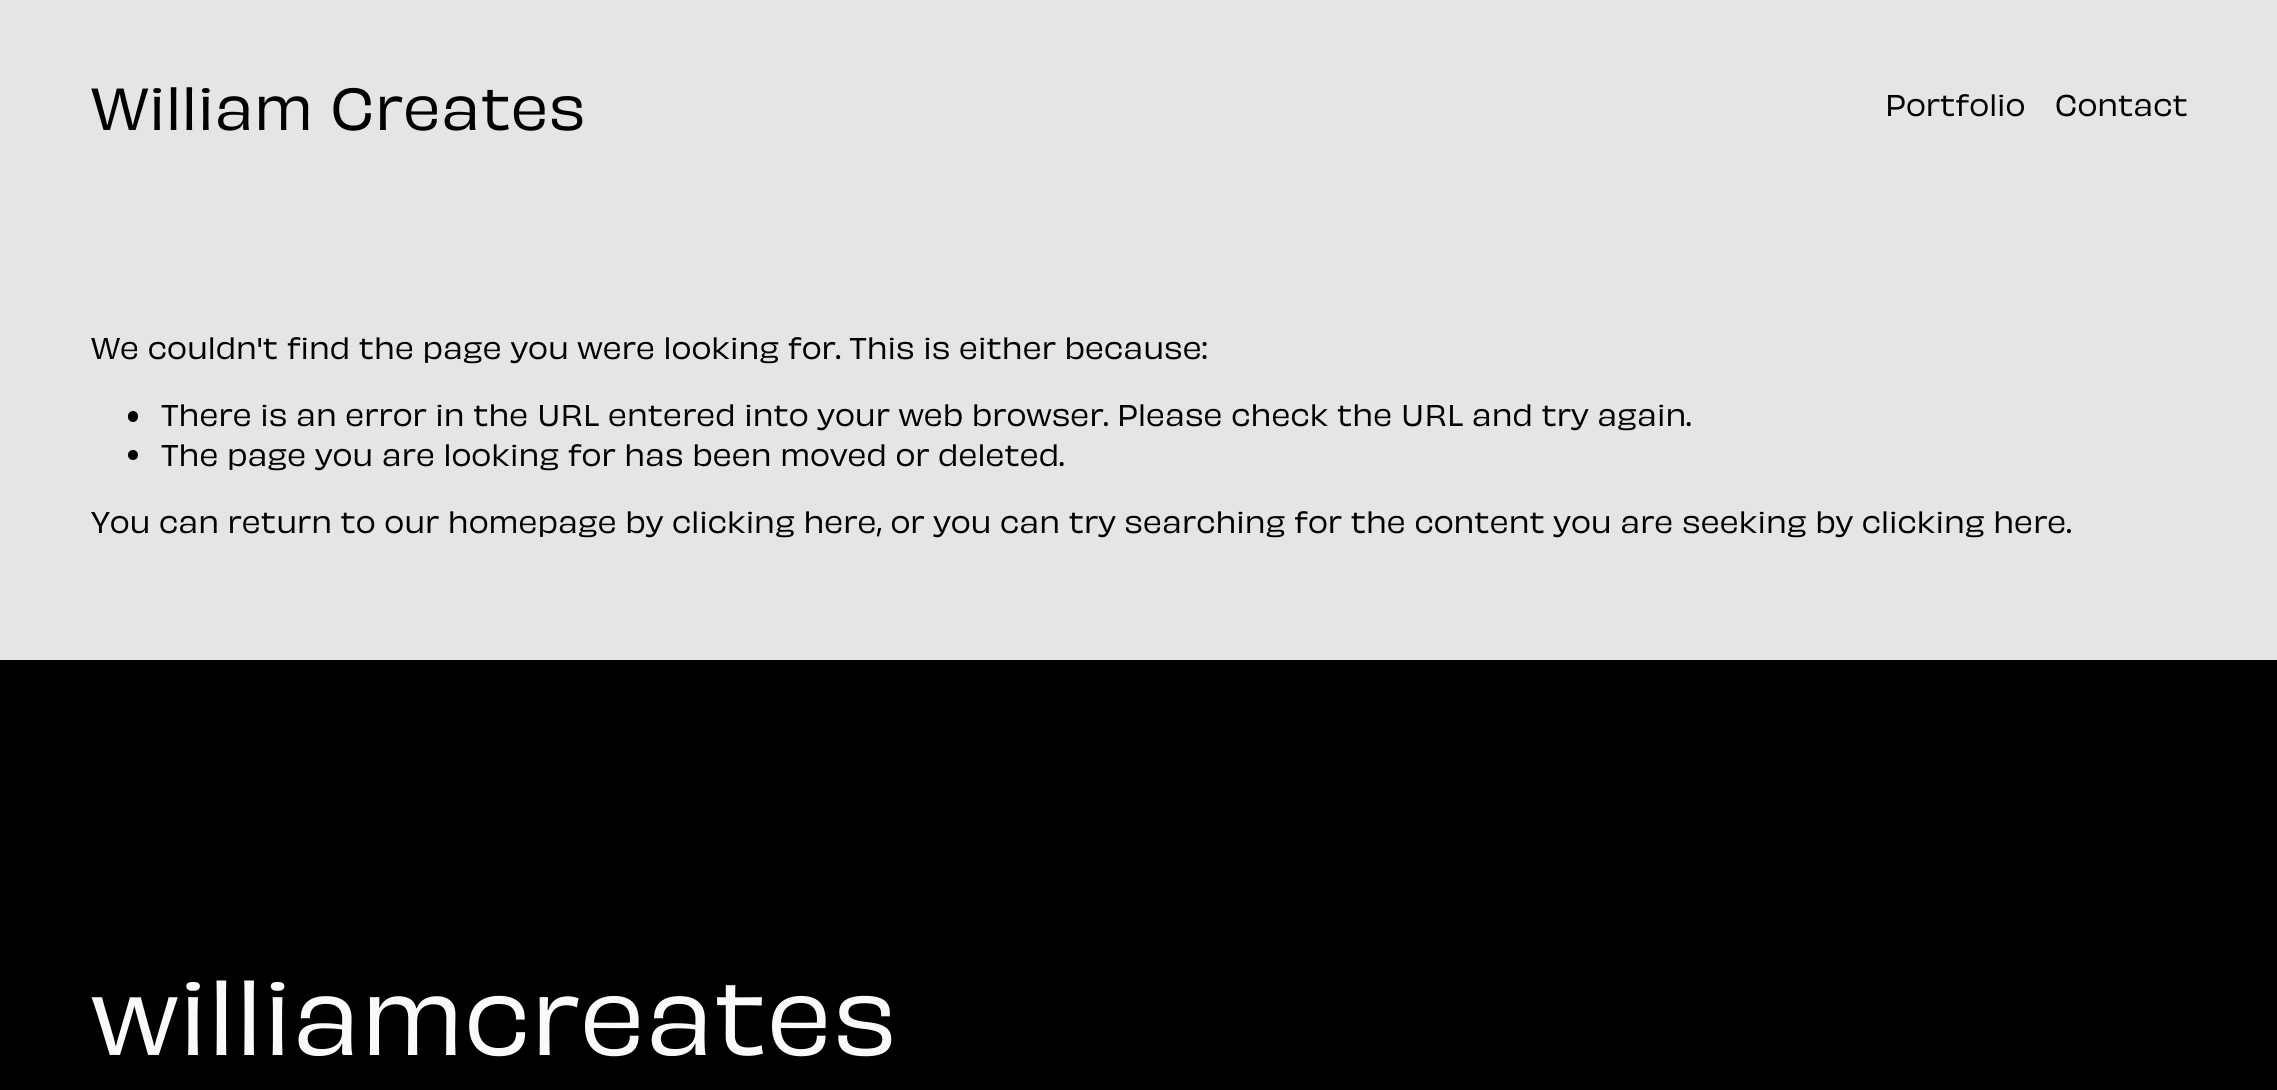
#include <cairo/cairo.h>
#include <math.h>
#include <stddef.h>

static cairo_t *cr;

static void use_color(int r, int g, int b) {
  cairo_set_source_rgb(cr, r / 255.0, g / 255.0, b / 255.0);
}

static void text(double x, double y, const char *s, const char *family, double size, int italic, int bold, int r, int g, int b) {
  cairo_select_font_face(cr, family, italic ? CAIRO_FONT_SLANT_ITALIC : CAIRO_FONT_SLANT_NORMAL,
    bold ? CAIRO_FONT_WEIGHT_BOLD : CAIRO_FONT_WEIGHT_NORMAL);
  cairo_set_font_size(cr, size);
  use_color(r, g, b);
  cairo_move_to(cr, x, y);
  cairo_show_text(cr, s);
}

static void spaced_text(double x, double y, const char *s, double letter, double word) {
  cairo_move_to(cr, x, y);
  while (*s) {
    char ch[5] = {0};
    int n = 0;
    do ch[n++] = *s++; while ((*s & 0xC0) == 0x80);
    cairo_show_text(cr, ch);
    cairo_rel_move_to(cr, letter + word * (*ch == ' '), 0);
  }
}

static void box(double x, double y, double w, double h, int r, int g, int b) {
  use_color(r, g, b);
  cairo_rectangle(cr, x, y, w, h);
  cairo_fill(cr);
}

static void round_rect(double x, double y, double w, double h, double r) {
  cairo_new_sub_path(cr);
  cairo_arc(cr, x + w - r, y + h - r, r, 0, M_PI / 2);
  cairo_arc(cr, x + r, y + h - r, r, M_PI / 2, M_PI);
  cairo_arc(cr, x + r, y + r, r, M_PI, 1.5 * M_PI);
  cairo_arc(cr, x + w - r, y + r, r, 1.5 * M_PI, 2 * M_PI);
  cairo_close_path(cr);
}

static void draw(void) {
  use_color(229, 229, 232);
  cairo_paint(cr);
  use_color(0, 0, 0);
  round_rect(128, 411, 10, 11, 5);
  cairo_fill(cr);
  cairo_arc(cr, 133, 455, 5, 0, 2 * M_PI);
  cairo_fill(cr);
  box(0, 660, 2277, 430, 0, 0, 0);
  cairo_select_font_face(cr, "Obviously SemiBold", CAIRO_FONT_SLANT_NORMAL, CAIRO_FONT_WEIGHT_NORMAL);
  cairo_set_font_size(cr, 55.25);
  spaced_text(91, 130, "William Creates", 0.25, 0);
  text(1885, 116, "Portfolio", "Obviously SemiBold", 28, 0, 0, 0, 0, 0);
  text(2055, 116, "Contact", "Obviously SemiBold", 28, 0, 0, 0, 0, 0);
  text(91, 359, "We couldn't find the page you were looking for. This is either because:", "Obviously SemiBold", 28, 0, 0, 0, 0, 0);
  text(161, 426, "There is an error in the URL entered into your web browser. Please check the URL and try again.", "Obviously SemiBold", 28, 0, 0, 0, 0, 0);
  text(161, 466, "The page you are looking for has been moved or deleted.", "Obviously SemiBold", 28, 0, 0, 0, 0, 0);
  text(91, 533, "You can return to our homepage by clicking here, or you can try searching for the content you are seeking by clicking here.", "Obviously SemiBold", 28, 0, 0, 0, 0, 0);
  cairo_set_font_size(cr, 96.25);
  use_color(250, 250, 250);
  spaced_text(91, 1055, "williamcreates", 0.25, 0);
}

int main(void) {
  cairo_surface_t *surface = cairo_image_surface_create(CAIRO_FORMAT_RGB24, 2277, 1090);
  cr = cairo_create(surface);
  cairo_font_options_t *options = cairo_font_options_create();
  cairo_font_options_set_hint_metrics(options, CAIRO_HINT_METRICS_OFF);
  cairo_font_options_set_hint_style(options, CAIRO_HINT_STYLE_NONE);
  cairo_set_font_options(cr, options);
  cairo_set_miter_limit(cr, 4);
  draw();
  cairo_surface_write_to_png(surface, "out.png");
  cairo_font_options_destroy(options);
  cairo_destroy(cr);
  cairo_surface_destroy(surface);
  return 0;
}
